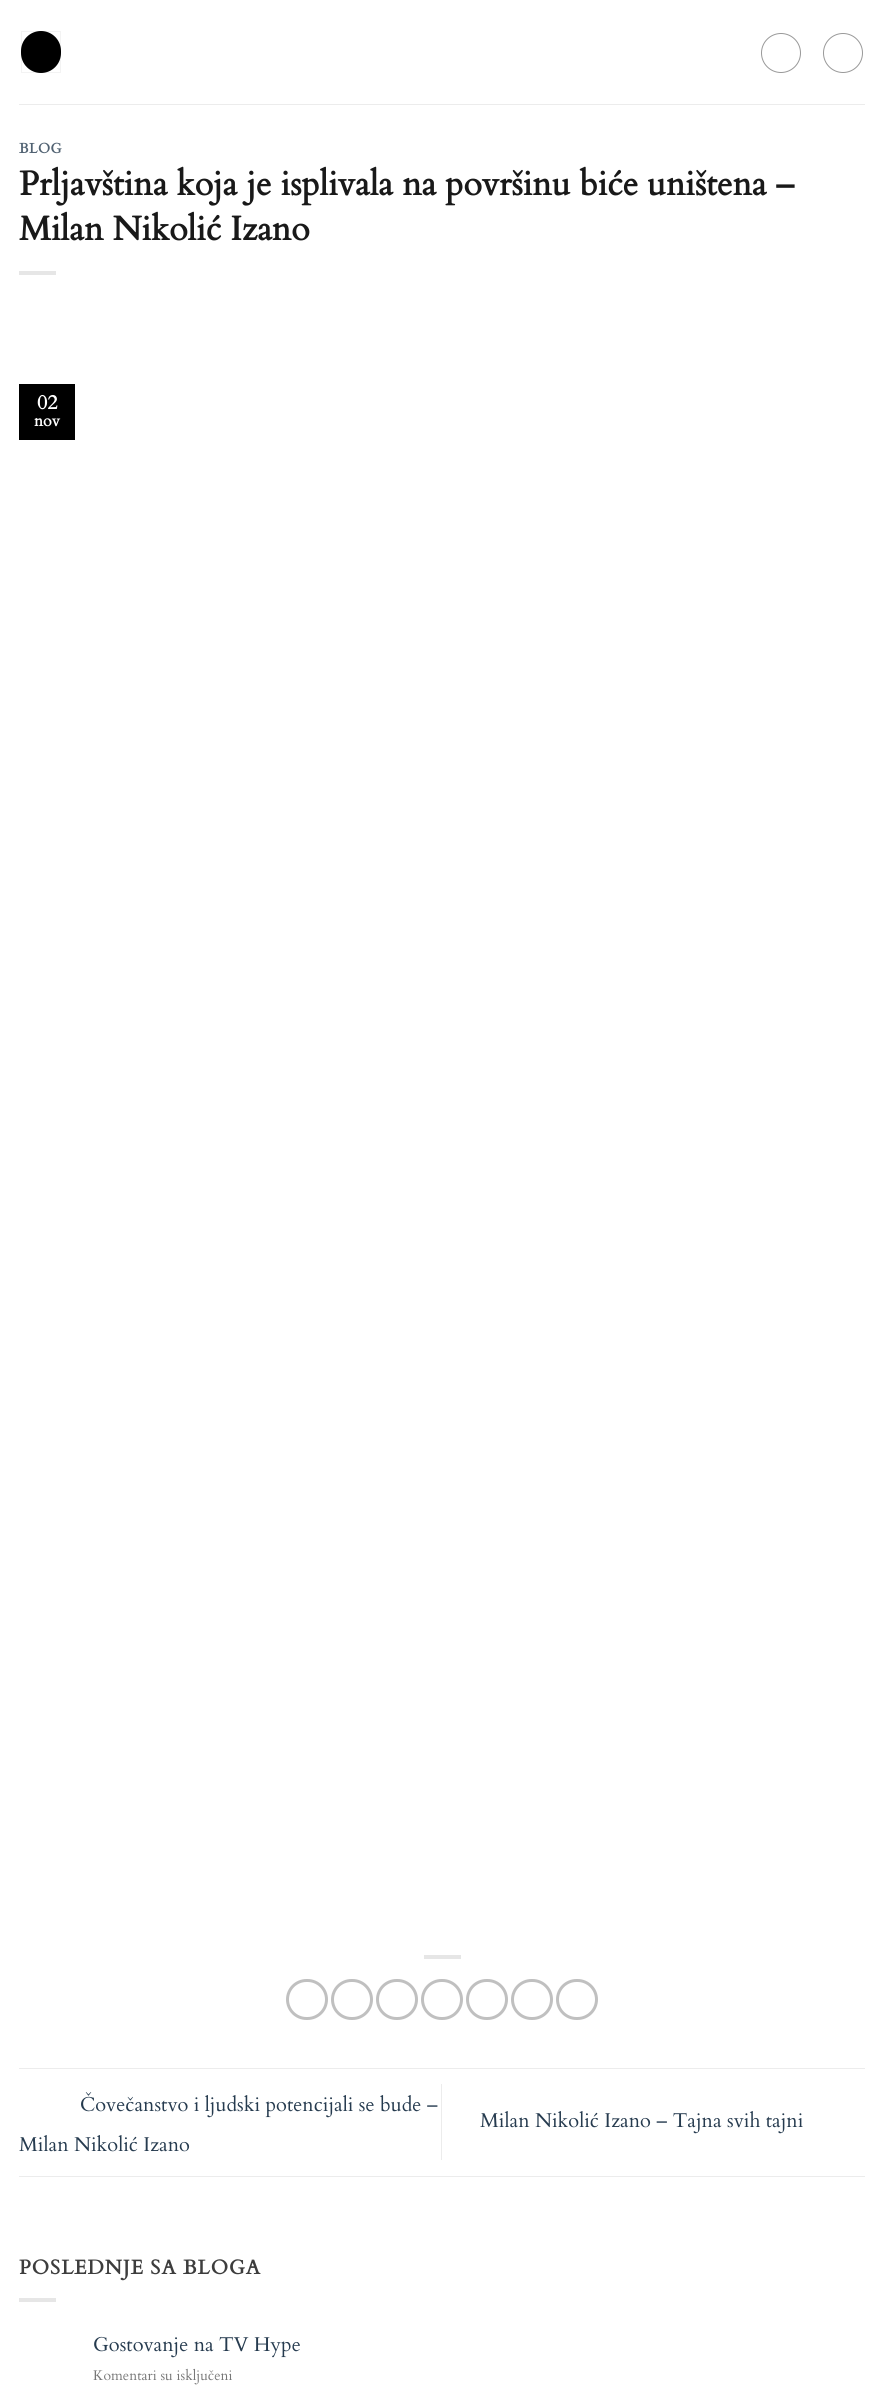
#include <cairo/cairo.h>
#include <math.h>
#include <stddef.h>

static cairo_t *cr;

static void use_color(int r, int g, int b) {
  cairo_set_source_rgb(cr, r / 255.0, g / 255.0, b / 255.0);
}

static void text(double x, double y, const char *s, const char *family, double size, int italic, int bold, int r, int g, int b) {
  cairo_select_font_face(cr, family, italic ? CAIRO_FONT_SLANT_ITALIC : CAIRO_FONT_SLANT_NORMAL,
    bold ? CAIRO_FONT_WEIGHT_BOLD : CAIRO_FONT_WEIGHT_NORMAL);
  cairo_set_font_size(cr, size);
  use_color(r, g, b);
  cairo_move_to(cr, x, y);
  cairo_show_text(cr, s);
}

static void spaced_text(double x, double y, const char *s, double letter, double word) {
  cairo_move_to(cr, x, y);
  while (*s) {
    char ch[5] = {0};
    int n = 0;
    do ch[n++] = *s++; while ((*s & 0xC0) == 0x80);
    cairo_show_text(cr, ch);
    cairo_rel_move_to(cr, letter + word * (*ch == ' '), 0);
  }
}

static void box(double x, double y, double w, double h, int r, int g, int b) {
  use_color(r, g, b);
  cairo_rectangle(cr, x, y, w, h);
  cairo_fill(cr);
}

static void round_rect(double x, double y, double w, double h, double r) {
  cairo_new_sub_path(cr);
  cairo_arc(cr, x + w - r, y + h - r, r, 0, M_PI / 2);
  cairo_arc(cr, x + r, y + h - r, r, M_PI / 2, M_PI);
  cairo_arc(cr, x + r, y + r, r, M_PI, 1.5 * M_PI);
  cairo_arc(cr, x + w - r, y + r, r, 1.5 * M_PI, 2 * M_PI);
  cairo_close_path(cr);
}

static void draw(void) {
  use_color(255, 255, 255);
  cairo_paint(cr);
  use_color(0, 0, 0);
  round_rect(21, 31, 40, 42, 20);
  cairo_fill(cr);
  cairo_rectangle(cr, 21.5, 31.5, 39, 41);
  cairo_set_source_rgba(cr, 0, 0, 0, 0.05);
  cairo_set_line_width(cr, 1);
  cairo_stroke(cr);
  cairo_arc(cr, 781, 53, 19.5, 0, 2 * M_PI);
  use_color(153, 153, 153);
  cairo_stroke(cr);
  cairo_arc(cr, 843, 53, 19.5, 0, 2 * M_PI);
  cairo_stroke(cr);
  box(19, 104, 846, 1, 236, 236, 236);
  box(19, 271, 37, 4, 230, 230, 230);
  box(19, 384, 56, 56, 0, 0, 0);
  box(424, 1955, 37, 4, 230, 230, 230);
  round_rect(287.5, 1980.5, 39, 38, 19);
  use_color(192, 192, 192);
  cairo_set_line_width(cr, 3);
  cairo_stroke(cr);
  round_rect(332.5, 1980.5, 39, 38, 19);
  cairo_stroke(cr);
  round_rect(377.5, 1980.5, 39, 38, 19);
  cairo_stroke(cr);
  round_rect(422.5, 1980.5, 39, 38, 19);
  cairo_stroke(cr);
  round_rect(467.5, 1980.5, 39, 38, 19);
  cairo_stroke(cr);
  round_rect(512.5, 1980.5, 39, 38, 19);
  cairo_stroke(cr);
  round_rect(557.5, 1980.5, 39, 38, 19);
  cairo_stroke(cr);
  box(19, 2068, 846, 1, 236, 236, 236);
  box(19, 2176, 846, 1, 236, 236, 236);
  box(441, 2084, 1, 76, 236, 236, 236);
  box(19, 2298, 37, 4, 230, 230, 230);
  cairo_select_font_face(cr, "Cardo", CAIRO_FONT_SLANT_NORMAL, CAIRO_FONT_WEIGHT_BOLD);
  cairo_set_font_size(cr, 14);
  use_color(81, 98, 114);
  spaced_text(19, 153, "BLOG", 0.5, 0);
  text(19, 195, "Prljavština koja je isplivala na površinu biće uništena –", "Cardo", 34, 0, 1, 25, 25, 25);
  text(19, 240, "Milan Nikolić Izano", "Cardo", 34, 0, 1, 25, 25, 25);
  text(37, 409, "02", "Cardo", 20, 0, 1, 255, 255, 255);
  text(34, 426, "nov", "Cardo", 16, 0, 1, 255, 255, 255);
  text(80, 2111, "Čovečanstvo i ljudski potencijali se bude –", "Cardo", 20, 0, 0, 38, 59, 79);
  text(19, 2151, "Milan Nikolić Izano", "Cardo", 20, 0, 0, 38, 59, 79);
  text(480, 2127, "Milan Nikolić Izano – Tajna svih tajni", "Cardo", 20, 0, 0, 38, 59, 79);
  cairo_select_font_face(cr, "Cardo", CAIRO_FONT_SLANT_NORMAL, CAIRO_FONT_WEIGHT_BOLD);
  use_color(61, 61, 61);
  spaced_text(19, 2274, "POSLEDNJE SA BLOGA", 1, 0);
  text(93, 2351, "Gostovanje na TV Hype", "Cardo", 20, 0, 0, 38, 59, 79);
  text(93, 2380, "Komentari su isključeni", "Cardo", 14, 0, 0, 119, 119, 119);
}

int main(void) {
  cairo_surface_t *surface = cairo_image_surface_create(CAIRO_FORMAT_RGB24, 883, 2401);
  cr = cairo_create(surface);
  cairo_font_options_t *options = cairo_font_options_create();
  cairo_font_options_set_hint_metrics(options, CAIRO_HINT_METRICS_OFF);
  cairo_font_options_set_hint_style(options, CAIRO_HINT_STYLE_NONE);
  cairo_set_font_options(cr, options);
  cairo_set_miter_limit(cr, 4);
  draw();
  cairo_surface_write_to_png(surface, "out.png");
  cairo_font_options_destroy(options);
  cairo_destroy(cr);
  cairo_surface_destroy(surface);
  return 0;
}
